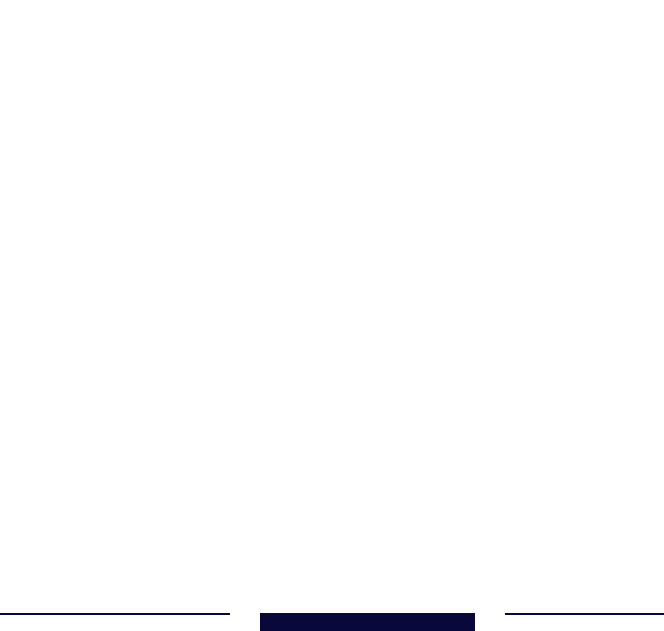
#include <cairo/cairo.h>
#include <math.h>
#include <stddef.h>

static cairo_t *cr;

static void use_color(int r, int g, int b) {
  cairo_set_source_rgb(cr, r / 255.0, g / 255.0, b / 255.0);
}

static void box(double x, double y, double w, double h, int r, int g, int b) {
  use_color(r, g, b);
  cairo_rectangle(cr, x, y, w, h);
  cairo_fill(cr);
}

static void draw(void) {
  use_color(255, 255, 255);
  cairo_paint(cr);
  box(0, 613, 230, 2, 9, 8, 59);
  box(260, 613, 215, 18, 9, 8, 59);
  box(505, 613, 159, 2, 9, 8, 59);
}

int main(void) {
  cairo_surface_t *surface = cairo_image_surface_create(CAIRO_FORMAT_RGB24, 664, 631);
  cr = cairo_create(surface);
  cairo_font_options_t *options = cairo_font_options_create();
  cairo_font_options_set_hint_metrics(options, CAIRO_HINT_METRICS_OFF);
  cairo_font_options_set_hint_style(options, CAIRO_HINT_STYLE_NONE);
  cairo_set_font_options(cr, options);
  cairo_set_miter_limit(cr, 4);
  draw();
  cairo_surface_write_to_png(surface, "out.png");
  cairo_font_options_destroy(options);
  cairo_destroy(cr);
  cairo_surface_destroy(surface);
  return 0;
}
